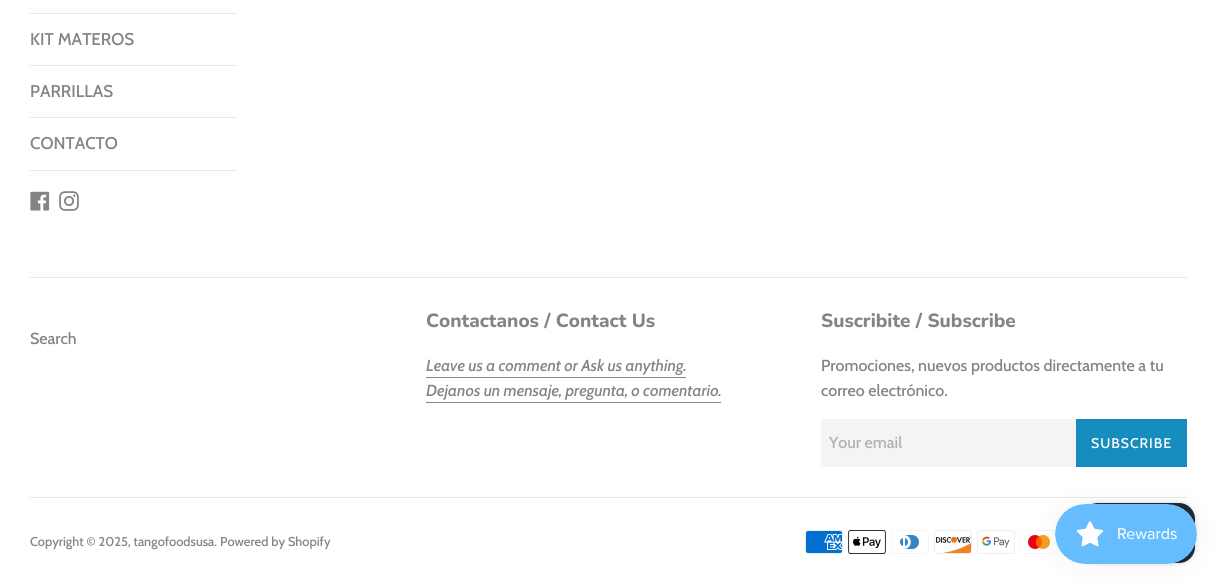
#include <cairo/cairo.h>
#include <math.h>
#include <stddef.h>

static cairo_t *cr;

static void use_color(int r, int g, int b) {
  cairo_set_source_rgb(cr, r / 255.0, g / 255.0, b / 255.0);
}

static void text(double x, double y, const char *s, const char *family, double size, int italic, int bold, int r, int g, int b) {
  cairo_select_font_face(cr, family, italic ? CAIRO_FONT_SLANT_ITALIC : CAIRO_FONT_SLANT_NORMAL,
    bold ? CAIRO_FONT_WEIGHT_BOLD : CAIRO_FONT_WEIGHT_NORMAL);
  cairo_set_font_size(cr, size);
  use_color(r, g, b);
  cairo_move_to(cr, x, y);
  cairo_show_text(cr, s);
}

static void spaced_text(double x, double y, const char *s, double letter, double word) {
  cairo_move_to(cr, x, y);
  while (*s) {
    char ch[5] = {0};
    int n = 0;
    do ch[n++] = *s++; while ((*s & 0xC0) == 0x80);
    cairo_show_text(cr, ch);
    cairo_rel_move_to(cr, letter + word * (*ch == ' '), 0);
  }
}

static void box(double x, double y, double w, double h, int r, int g, int b) {
  use_color(r, g, b);
  cairo_rectangle(cr, x, y, w, h);
  cairo_fill(cr);
}

static void round_rect(double x, double y, double w, double h, double r) {
  cairo_new_sub_path(cr);
  cairo_arc(cr, x + w - r, y + h - r, r, 0, M_PI / 2);
  cairo_arc(cr, x + r, y + h - r, r, M_PI / 2, M_PI);
  cairo_arc(cr, x + r, y + r, r, M_PI, 1.5 * M_PI);
  cairo_arc(cr, x + w - r, y + r, r, 1.5 * M_PI, 2 * M_PI);
  cairo_close_path(cr);
}

static void shadow(double x, double y, double w, double h, double r, double blur, double alpha) {
  cairo_push_group_with_content(cr, CAIRO_CONTENT_ALPHA);
  cairo_set_operator(cr, CAIRO_OPERATOR_SOURCE);
  for (int i = 15; i >= -15 && fmin(w, h) + blur * i / 3 > 0; i -= 2) {
    double e = blur * i / 6;
    cairo_set_source_rgba(cr, 0, 0, 0, alpha * erfc((i - 1) / 8.5) / 2);
    round_rect(x - e, y - e, w + 2 * e, h + 2 * e, fmax(0, fmin(r + e + blur * .6, fmin(w, h) / 2 + e)));
    cairo_fill(cr);
  }
  cairo_pattern_t *soft = cairo_pop_group(cr);
  cairo_mask(cr, soft);
  cairo_pattern_destroy(soft);
}

static void picture(const char *path, double x, double y, double w, double h) {
  cairo_surface_t *image = cairo_image_surface_create_from_png(path);
  cairo_save(cr);
  cairo_set_source_surface(cr, image, x, y);
  cairo_rectangle(cr, x, y, w, h);
  cairo_fill(cr);
  cairo_restore(cr);
  cairo_surface_destroy(image);
}

static void draw(void) {
  use_color(255, 255, 255);
  cairo_paint(cr);
  box(30, 13, 207, 1, 237, 232, 231);
  box(30, 65, 207, 1, 237, 232, 231);
  box(30, 117, 207, 1, 237, 232, 231);
  box(30, 170, 207, 1, 237, 232, 231);
  picture("img_01.png", 30, 191, 20, 20);
  picture("img_02.png", 59, 191, 20, 20);
  box(30, 277, 1157, 1, 237, 232, 231);
  box(426, 377, 260, 1, 133, 132, 131);
  box(426, 402, 295, 1, 133, 132, 131);
  box(821, 419, 255, 48, 244, 244, 244);
  box(1076, 419, 111, 48, 22, 141, 190);
  box(30, 497, 1157, 1, 237, 232, 231);
  picture("img_03.png", 805, 530, 38, 24);
  picture("img_04.png", 848, 530, 38, 24);
  picture("img_05.png", 891, 530, 38, 24);
  picture("img_06.png", 934, 530, 38, 24);
  picture("img_07.png", 977, 530, 38, 24);
  picture("img_08.png", 1020, 530, 38, 24);
  use_color(0, 0, 0);
  shadow(1082, 503, 113, 60, 16, 2.5, 0.15);
  use_color(32, 42, 54);
  round_rect(1082, 503, 113, 60, 16);
  cairo_fill(cr);
  use_color(0, 0, 0);
  shadow(1055, 504, 142, 60, 30, 12.5, 0.05);
  picture("img_09.png", 1055, 504, 142, 60);
  text(30, 45, "KIT MATEROS", "Cabin Medium", 17, 0, 0, 133, 132, 131);
  text(30, 97, "PARRILLAS", "Cabin Medium", 17, 0, 0, 133, 132, 131);
  text(30, 149, "CONTACTO", "Cabin Medium", 17, 0, 0, 133, 132, 131);
  text(30, 344, "Search", "Cabin Medium", 16, 0, 0, 133, 132, 131);
  text(426, 327, "Contactanos / Contact Us", "Nunito ExtraBold", 19, 0, 0, 133, 132, 131);
  text(426, 371, "Leave us a comment or Ask us anything.", "Cabin Medium", 16, 1, 0, 133, 132, 131);
  text(426, 396, "Dejanos un mensaje, pregunta, o comentario.", "Cabin Medium", 16, 1, 0, 133, 132, 131);
  text(821, 327, "Suscribite / Subscribe", "Nunito ExtraBold", 19, 0, 0, 133, 132, 131);
  text(821, 371, "Promociones, nuevos productos directamente a tu", "Cabin Medium", 16, 0, 0, 133, 132, 131);
  text(821, 396, "correo electrónico.", "Cabin Medium", 16, 0, 0, 133, 132, 131);
  text(829, 448, "Your email", "Cabin Medium", 16, 0, 0, 177, 177, 176);
  cairo_set_font_size(cr, 14);
  use_color(255, 255, 255);
  spaced_text(1091, 448, "SUBSCRIBE", 1, 0);
  text(30, 546, "Copyright © 2025, tangofoodsusa. Powered by Shopify", "Cabin Medium", 12.8, 0, 0, 133, 132, 131);
}

int main(void) {
  cairo_surface_t *surface = cairo_image_surface_create(CAIRO_FORMAT_RGB24, 1217, 584);
  cr = cairo_create(surface);
  cairo_font_options_t *options = cairo_font_options_create();
  cairo_font_options_set_hint_metrics(options, CAIRO_HINT_METRICS_OFF);
  cairo_font_options_set_hint_style(options, CAIRO_HINT_STYLE_NONE);
  cairo_set_font_options(cr, options);
  cairo_set_miter_limit(cr, 4);
  draw();
  cairo_surface_write_to_png(surface, "out.png");
  cairo_font_options_destroy(options);
  cairo_destroy(cr);
  cairo_surface_destroy(surface);
  return 0;
}
